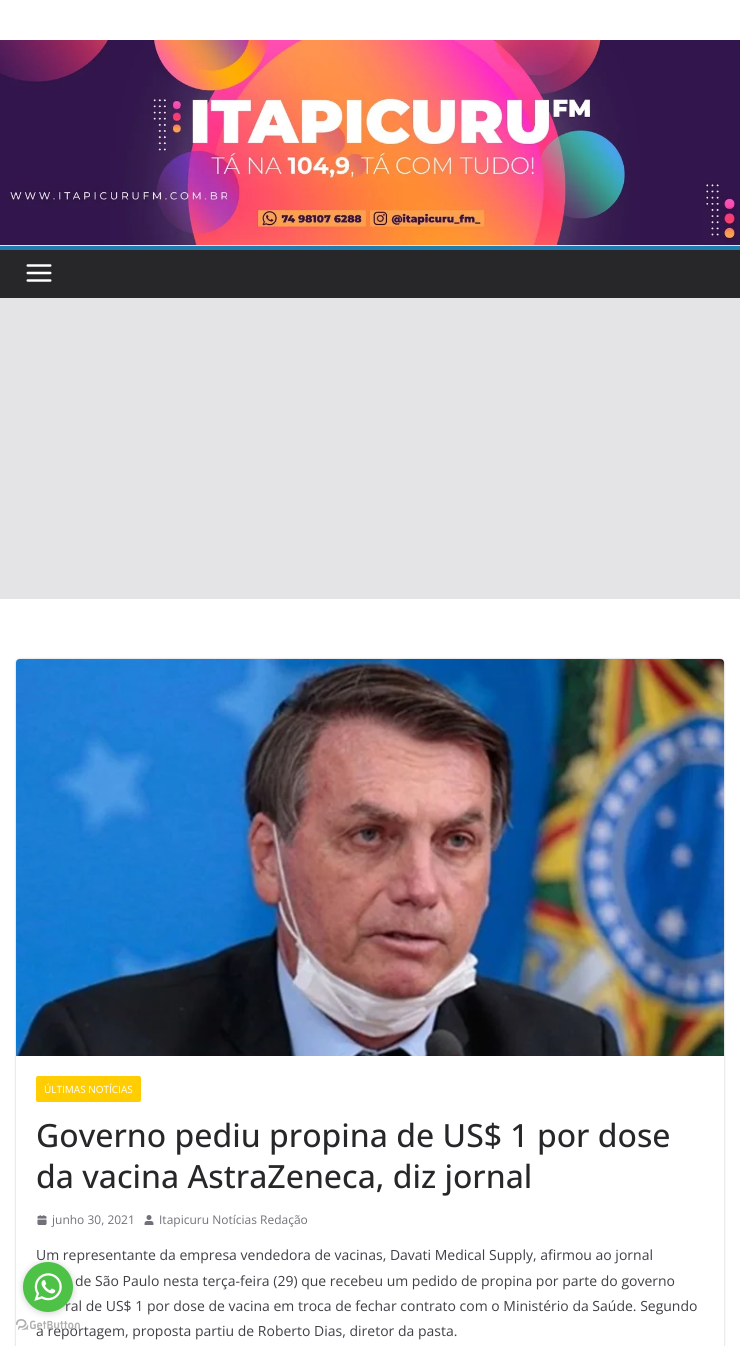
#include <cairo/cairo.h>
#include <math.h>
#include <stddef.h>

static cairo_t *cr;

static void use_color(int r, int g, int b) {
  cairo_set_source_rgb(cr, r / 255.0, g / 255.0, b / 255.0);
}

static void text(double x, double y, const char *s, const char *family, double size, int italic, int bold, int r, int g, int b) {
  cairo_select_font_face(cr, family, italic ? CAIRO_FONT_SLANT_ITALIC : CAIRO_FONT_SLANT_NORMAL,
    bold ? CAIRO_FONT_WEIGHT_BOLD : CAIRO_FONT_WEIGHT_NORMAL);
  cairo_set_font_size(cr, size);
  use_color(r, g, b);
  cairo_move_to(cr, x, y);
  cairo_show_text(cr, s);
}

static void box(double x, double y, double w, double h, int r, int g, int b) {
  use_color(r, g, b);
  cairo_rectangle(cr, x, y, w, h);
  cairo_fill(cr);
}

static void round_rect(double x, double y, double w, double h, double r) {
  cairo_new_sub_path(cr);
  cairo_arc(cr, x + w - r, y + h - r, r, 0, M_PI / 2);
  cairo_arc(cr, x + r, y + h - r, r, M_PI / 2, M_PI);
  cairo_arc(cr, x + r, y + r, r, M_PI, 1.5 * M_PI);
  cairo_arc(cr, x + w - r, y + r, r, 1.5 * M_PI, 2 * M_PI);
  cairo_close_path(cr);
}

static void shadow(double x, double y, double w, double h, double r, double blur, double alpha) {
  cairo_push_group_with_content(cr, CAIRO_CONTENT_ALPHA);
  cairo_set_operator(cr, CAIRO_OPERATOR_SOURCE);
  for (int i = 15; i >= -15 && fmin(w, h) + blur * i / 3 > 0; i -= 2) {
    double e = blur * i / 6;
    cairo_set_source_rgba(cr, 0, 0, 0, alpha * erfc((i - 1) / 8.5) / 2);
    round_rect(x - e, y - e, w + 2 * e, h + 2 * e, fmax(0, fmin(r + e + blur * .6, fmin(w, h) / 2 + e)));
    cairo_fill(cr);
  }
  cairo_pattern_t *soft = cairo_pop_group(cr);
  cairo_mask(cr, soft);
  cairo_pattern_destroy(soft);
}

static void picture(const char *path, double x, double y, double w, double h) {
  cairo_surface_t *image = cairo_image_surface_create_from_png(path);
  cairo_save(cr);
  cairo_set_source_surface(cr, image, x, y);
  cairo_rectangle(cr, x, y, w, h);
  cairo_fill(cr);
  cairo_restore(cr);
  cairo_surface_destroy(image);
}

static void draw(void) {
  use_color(228, 228, 231);
  cairo_paint(cr);
  box(0, 0, 740, 40, 255, 255, 255);
  picture("img_01.png", 0, 40, 740, 205);
  box(0, 250, 740, 48, 39, 39, 42);
  box(0, 246, 740, 4, 32, 125, 175);
  picture("img_02.png", 26, 264, 26, 18);
  box(0, 599, 740, 747, 255, 255, 255);
  cairo_save(cr);
  cairo_set_fill_rule(cr, CAIRO_FILL_RULE_EVEN_ODD);
  cairo_new_path(cr);
  cairo_move_to(cr, 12, 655);
  cairo_line_to(cr, 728, 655);
  cairo_line_to(cr, 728, 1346);
  cairo_line_to(cr, 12, 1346);
  cairo_close_path(cr);
  cairo_move_to(cr, 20, 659);
  cairo_line_to(cr, 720, 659);
  cairo_curve_to(cr, 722, 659, 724, 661, 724, 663);
  cairo_line_to(cr, 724, 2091);
  cairo_curve_to(cr, 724, 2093, 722, 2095, 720, 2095);
  cairo_line_to(cr, 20, 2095);
  cairo_curve_to(cr, 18, 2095, 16, 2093, 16, 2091);
  cairo_line_to(cr, 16, 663);
  cairo_curve_to(cr, 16, 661, 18, 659, 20, 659);
  cairo_close_path(cr);
  cairo_clip(cr);
  use_color(0, 0, 0);
  shadow(16, 659, 708, 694, 4, 1, 0.24);
  cairo_restore(cr);
  picture("img_03.png", 16, 659, 708, 397);
  use_color(255, 205, 1);
  round_rect(36, 1076, 105, 26, 2);
  cairo_fill(cr);
  picture("img_04.png", 37, 1215, 10, 10);
  picture("img_05.png", 144, 1215, 10, 10);
  text(44, 1093, "ÚLTIMAS NOTÍCIAS", "Open Sans", 10, 0, 0, 255, 255, 255);
  text(36, 1147, "Governo pediu propina de US$ 1 por dose", "Open Sans Medium", 32, 0, 0, 39, 39, 42);
  text(36, 1188, "da vacina AstraZeneca, diz jornal", "Open Sans Medium", 32, 0, 0, 39, 39, 42);
  text(52, 1224, "junho 30, 2021", "Open Sans", 12, 0, 0, 113, 113, 122);
  text(159, 1224, "Itapicuru Notícias Redação", "Open Sans", 12, 0, 0, 113, 113, 122);
  text(36, 1260, "Um representante da empresa vendedora de vacinas, Davati Medical Supply, afirmou ao jornal", "Open Sans", 14, 0, 0, 63, 63, 70);
  text(75, 1286, "de São Paulo nesta terça-feira (29) que recebeu um pedido de propina por parte do governo", "Open Sans", 14, 0, 0, 63, 63, 70);
  text(65, 1311, "ral de US$ 1 por dose de vacina em troca de fechar contrato com o Ministério da Saúde. Segundo", "Open Sans", 14, 0, 0, 63, 63, 70);
  text(36, 1336, "a reportagem, proposta partiu de Roberto Dias, diretor da pasta.", "Open Sans", 14, 0, 0, 63, 63, 70);
  picture("img_07.png", 16, 1319, 64, 11);
  use_color(136, 136, 136);
  shadow(23, 1263, 50, 50, 25, 3.5, 0.4);
  use_color(77, 194, 71);
  cairo_arc(cr, 48, 1287, 25, 0, 2 * M_PI);
  cairo_fill(cr);
  picture("img_06.png", 34, 1273, 28, 28);
}

int main(void) {
  cairo_surface_t *surface = cairo_image_surface_create(CAIRO_FORMAT_RGB24, 740, 1346);
  cr = cairo_create(surface);
  cairo_font_options_t *options = cairo_font_options_create();
  cairo_font_options_set_hint_metrics(options, CAIRO_HINT_METRICS_OFF);
  cairo_font_options_set_hint_style(options, CAIRO_HINT_STYLE_NONE);
  cairo_set_font_options(cr, options);
  cairo_set_miter_limit(cr, 4);
  draw();
  cairo_surface_write_to_png(surface, "out.png");
  cairo_font_options_destroy(options);
  cairo_destroy(cr);
  cairo_surface_destroy(surface);
  return 0;
}
